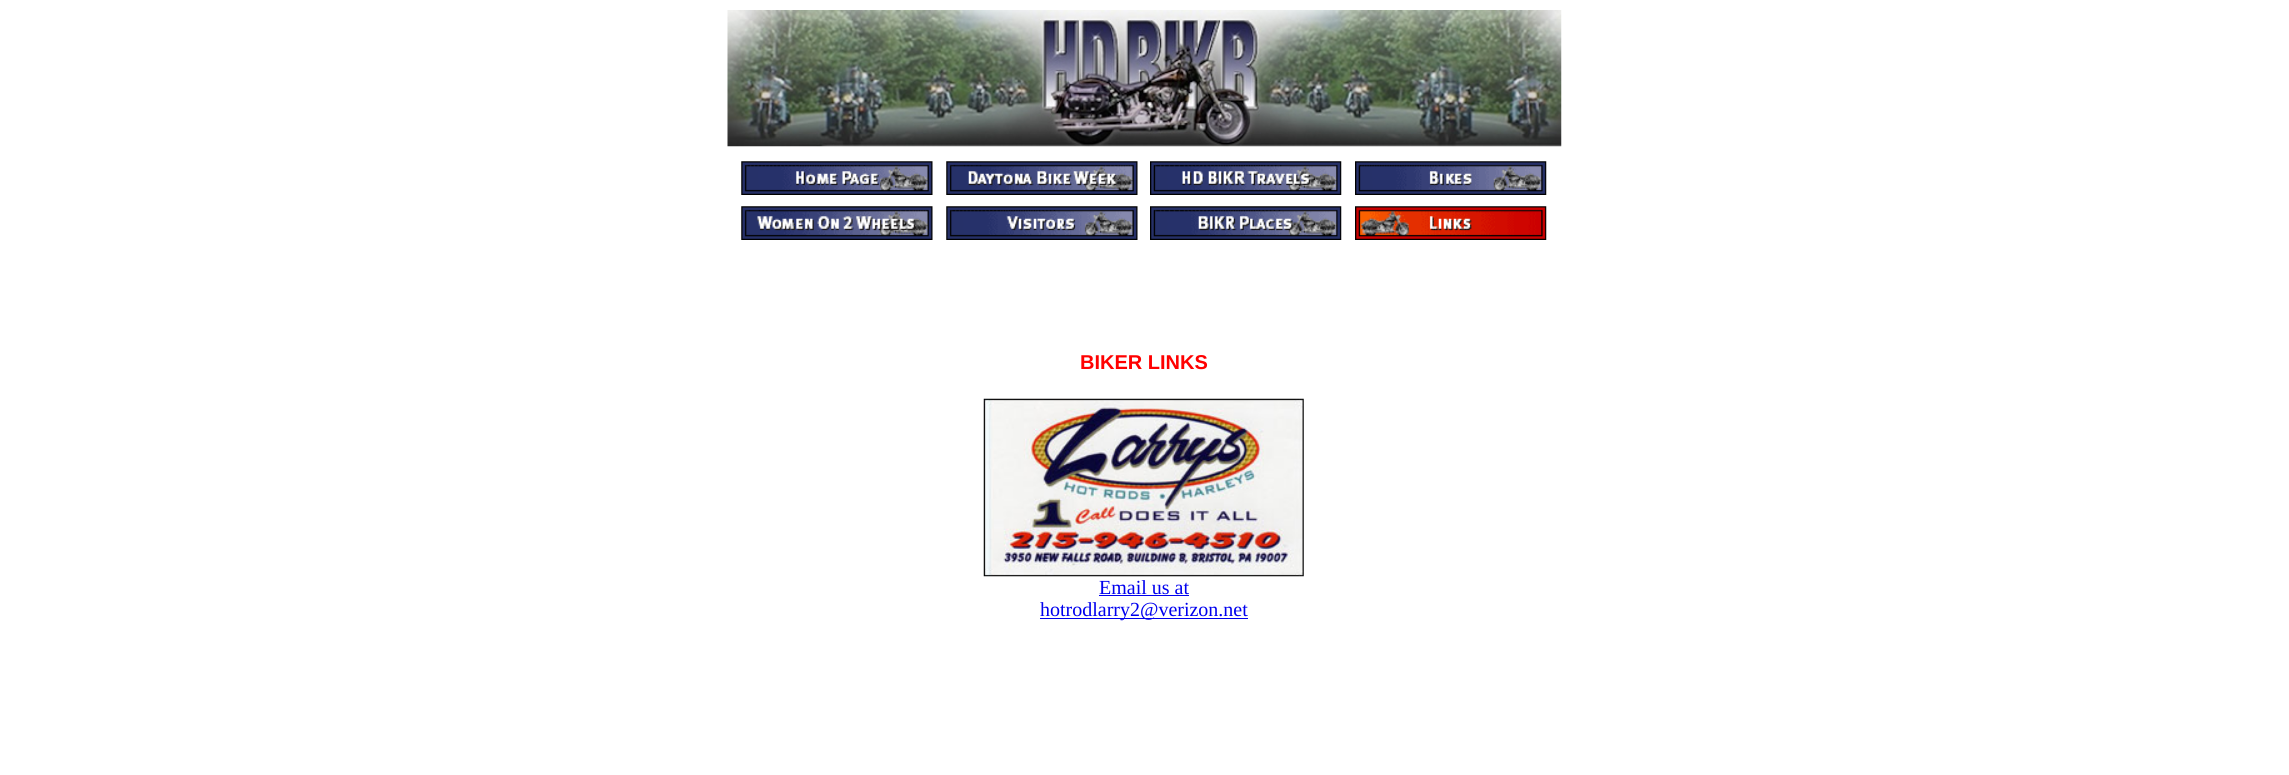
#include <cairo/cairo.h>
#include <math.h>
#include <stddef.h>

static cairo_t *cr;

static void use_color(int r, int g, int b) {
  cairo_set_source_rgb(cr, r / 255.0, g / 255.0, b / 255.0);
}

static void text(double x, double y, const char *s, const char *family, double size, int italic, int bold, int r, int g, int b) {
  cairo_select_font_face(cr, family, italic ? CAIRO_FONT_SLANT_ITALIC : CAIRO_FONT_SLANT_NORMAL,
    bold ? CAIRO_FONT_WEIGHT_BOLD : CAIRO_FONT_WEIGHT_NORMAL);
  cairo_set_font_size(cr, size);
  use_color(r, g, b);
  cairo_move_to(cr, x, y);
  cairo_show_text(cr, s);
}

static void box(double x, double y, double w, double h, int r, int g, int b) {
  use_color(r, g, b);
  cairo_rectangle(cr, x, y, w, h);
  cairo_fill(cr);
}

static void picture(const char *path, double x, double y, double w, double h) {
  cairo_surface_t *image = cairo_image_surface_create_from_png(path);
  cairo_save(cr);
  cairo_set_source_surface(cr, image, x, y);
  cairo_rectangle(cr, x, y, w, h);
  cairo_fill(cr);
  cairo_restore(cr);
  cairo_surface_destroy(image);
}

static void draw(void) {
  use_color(255, 255, 255);
  cairo_paint(cr);
  picture("img_01.png", 727, 10, 835, 137);
  picture("img_02.png", 741, 161, 192, 34);
  picture("img_03.png", 946, 161, 192, 34);
  picture("img_04.png", 1150, 161, 192, 34);
  picture("img_05.png", 1355, 161, 192, 34);
  picture("img_06.png", 741, 206, 192, 34);
  picture("img_07.png", 946, 206, 192, 34);
  picture("img_08.png", 1150, 206, 192, 34);
  picture("img_09.png", 1355, 206, 192, 34);
  picture("img_10.png", 983, 398, 321, 179);
  box(1099, 595, 90, 1, 0, 0, 238);
  box(1040, 618, 208, 1, 0, 0, 238);
  text(1080, 369, "BIKER LINKS", "Liberation Sans", 20, 0, 1, 255, 0, 0);
  text(1099, 594, "Email us at", "Liberation Serif", 20, 0, 0, 0, 0, 238);
  text(1040, 616, "hotrodlarry2@verizon.net", "Liberation Serif", 20, 0, 0, 0, 0, 238);
}

int main(void) {
  cairo_surface_t *surface = cairo_image_surface_create(CAIRO_FORMAT_RGB24, 2289, 775);
  cr = cairo_create(surface);
  cairo_font_options_t *options = cairo_font_options_create();
  cairo_font_options_set_hint_metrics(options, CAIRO_HINT_METRICS_OFF);
  cairo_font_options_set_hint_style(options, CAIRO_HINT_STYLE_NONE);
  cairo_set_font_options(cr, options);
  cairo_set_miter_limit(cr, 4);
  draw();
  cairo_surface_write_to_png(surface, "out.png");
  cairo_font_options_destroy(options);
  cairo_destroy(cr);
  cairo_surface_destroy(surface);
  return 0;
}
